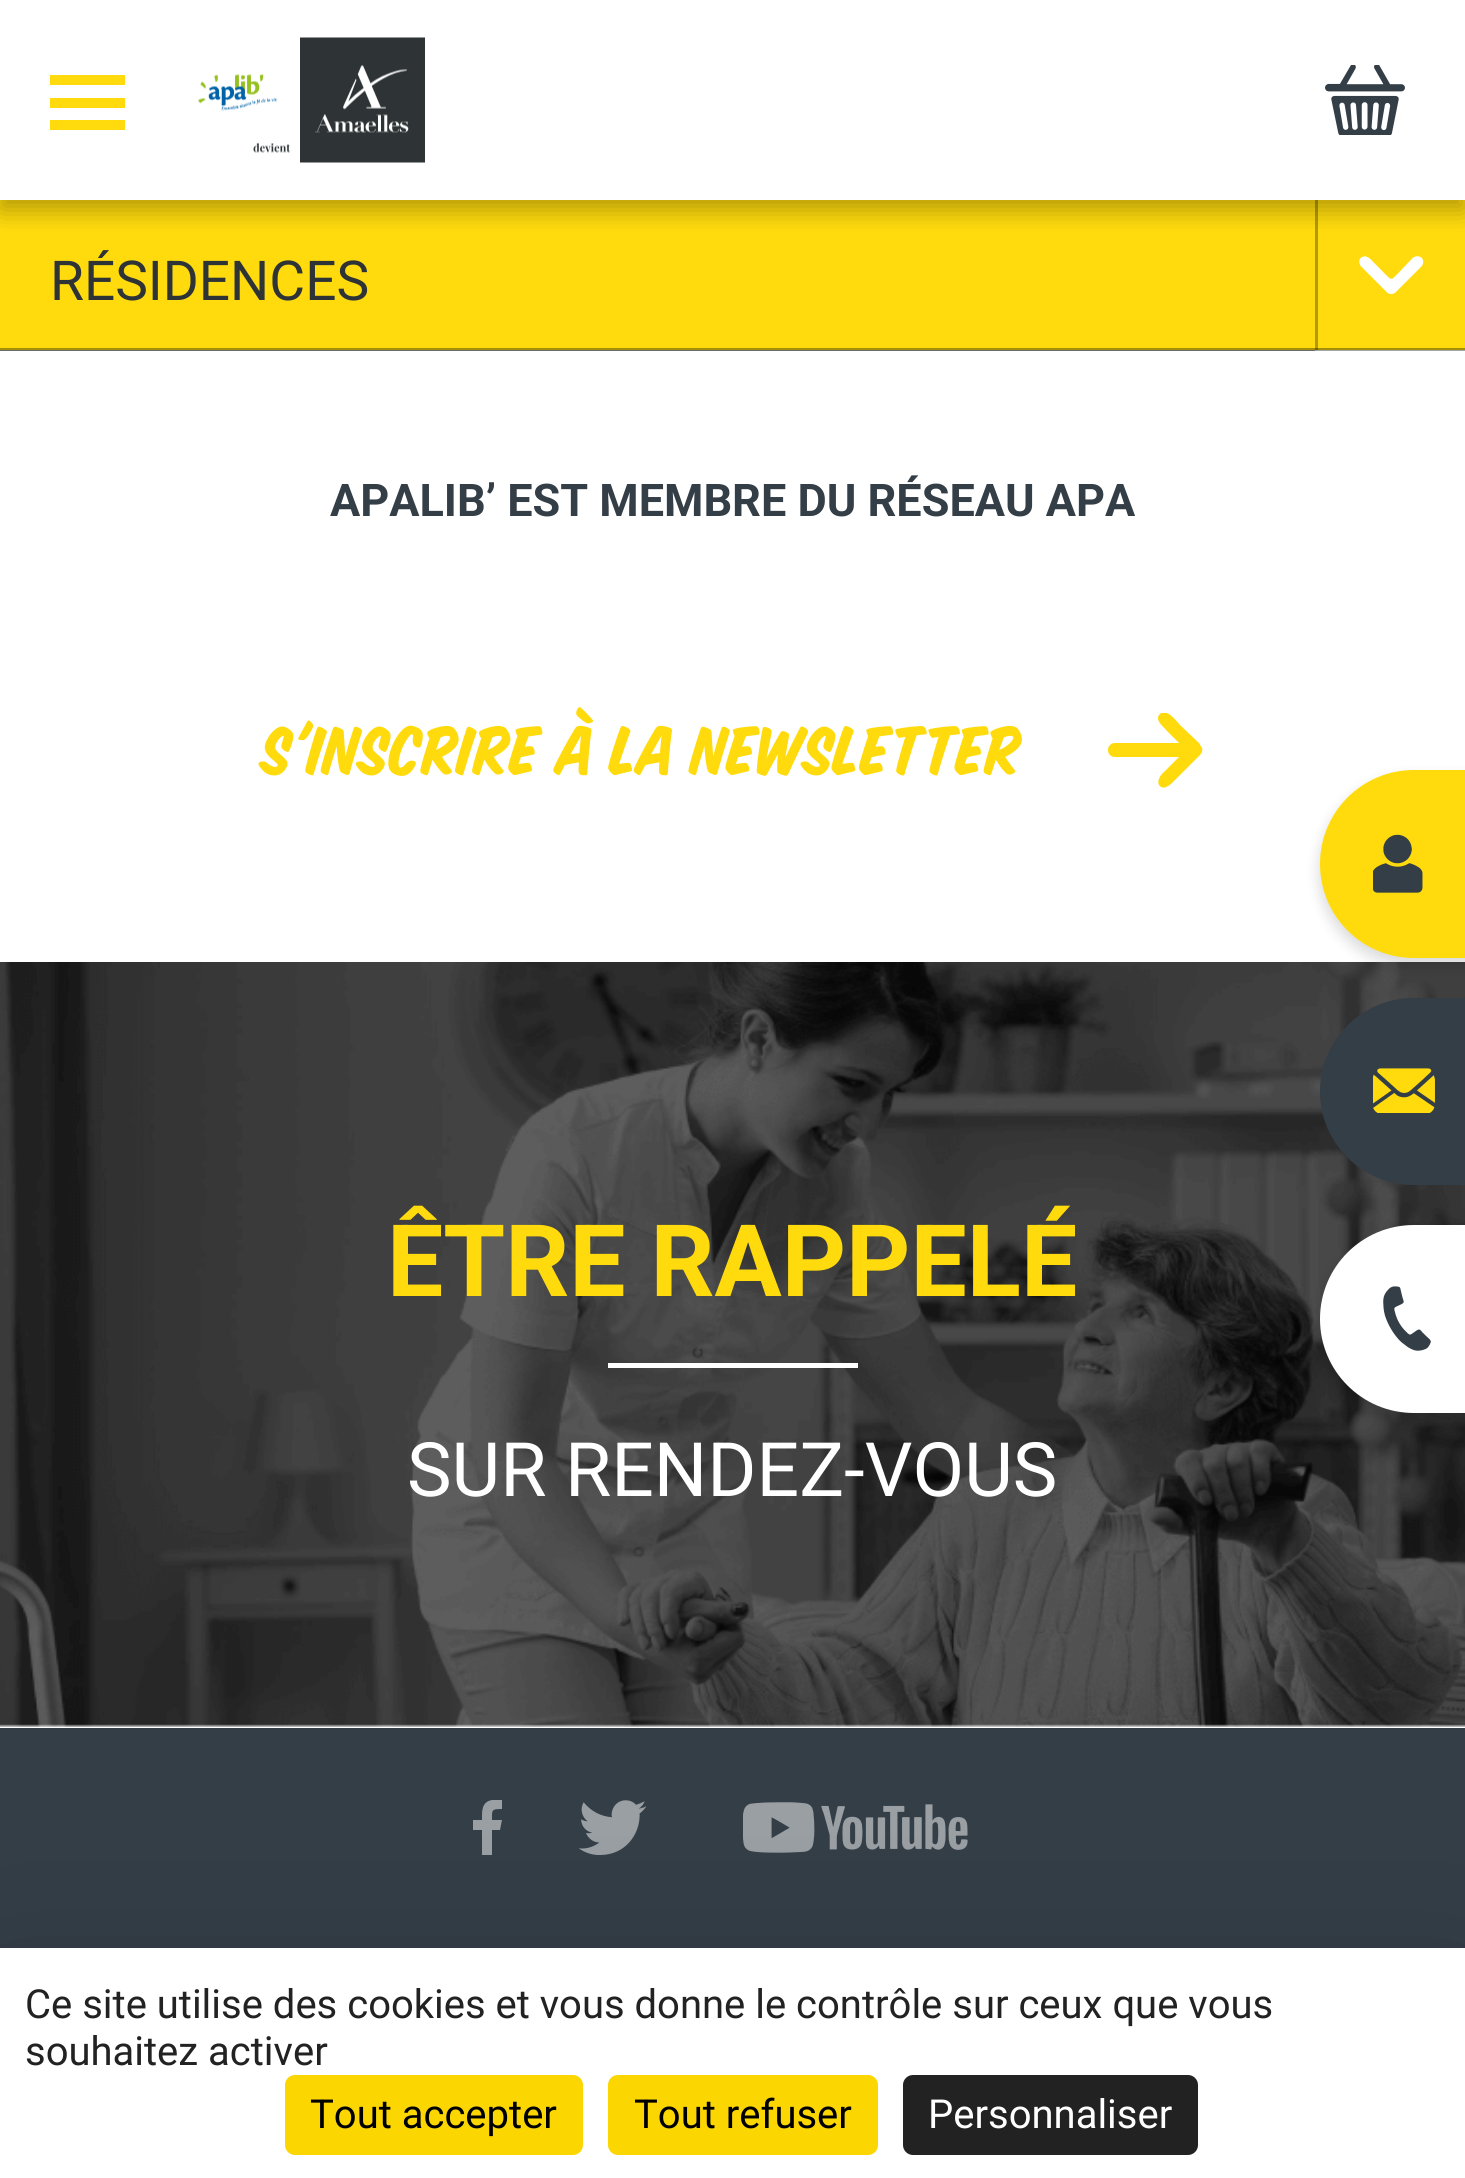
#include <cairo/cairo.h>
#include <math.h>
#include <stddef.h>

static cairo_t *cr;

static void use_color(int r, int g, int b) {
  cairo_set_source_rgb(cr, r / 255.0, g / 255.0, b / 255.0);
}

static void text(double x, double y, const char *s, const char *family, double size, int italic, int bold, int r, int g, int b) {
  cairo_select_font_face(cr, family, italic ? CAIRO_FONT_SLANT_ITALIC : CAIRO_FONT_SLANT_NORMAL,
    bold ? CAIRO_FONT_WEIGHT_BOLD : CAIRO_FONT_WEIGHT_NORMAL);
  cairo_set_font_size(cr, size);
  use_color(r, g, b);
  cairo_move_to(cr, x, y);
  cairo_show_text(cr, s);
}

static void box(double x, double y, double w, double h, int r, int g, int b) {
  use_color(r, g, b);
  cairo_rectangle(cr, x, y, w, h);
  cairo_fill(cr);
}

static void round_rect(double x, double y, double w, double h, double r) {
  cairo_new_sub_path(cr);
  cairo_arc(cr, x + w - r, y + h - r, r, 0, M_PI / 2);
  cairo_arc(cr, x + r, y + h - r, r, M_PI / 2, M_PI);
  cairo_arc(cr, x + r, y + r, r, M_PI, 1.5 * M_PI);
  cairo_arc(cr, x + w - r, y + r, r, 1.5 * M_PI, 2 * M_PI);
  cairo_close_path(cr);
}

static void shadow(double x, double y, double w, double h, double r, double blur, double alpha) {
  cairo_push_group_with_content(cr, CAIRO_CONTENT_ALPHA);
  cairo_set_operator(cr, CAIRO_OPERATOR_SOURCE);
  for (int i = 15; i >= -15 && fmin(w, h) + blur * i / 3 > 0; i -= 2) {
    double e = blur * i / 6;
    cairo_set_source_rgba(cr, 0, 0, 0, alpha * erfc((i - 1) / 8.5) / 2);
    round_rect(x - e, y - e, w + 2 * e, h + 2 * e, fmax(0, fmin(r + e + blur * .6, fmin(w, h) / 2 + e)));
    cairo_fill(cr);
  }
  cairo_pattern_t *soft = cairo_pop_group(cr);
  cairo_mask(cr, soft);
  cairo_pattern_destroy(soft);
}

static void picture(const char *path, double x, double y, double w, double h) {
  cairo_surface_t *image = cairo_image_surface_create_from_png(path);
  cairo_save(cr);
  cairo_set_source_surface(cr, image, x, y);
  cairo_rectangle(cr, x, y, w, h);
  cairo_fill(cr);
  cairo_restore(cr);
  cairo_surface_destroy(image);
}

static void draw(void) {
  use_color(255, 255, 255);
  cairo_paint(cr);
  box(1315, 200, 150, 150, 255, 219, 13);
  cairo_set_source_rgba(cr, 0, 0, 0, 0.35);
  cairo_rectangle(cr, 0, 348, 1465, 3);
  cairo_fill(cr);
  box(0, 200, 1315, 150, 255, 219, 13);
  cairo_set_source_rgba(cr, 0, 0, 0, 0.3);
  cairo_rectangle(cr, 1315, 200, 3, 150);
  cairo_fill(cr);
  use_color(0, 0, 0);
  shadow(0, -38, 1465, 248, 0, 12.5, 0.16);
  shadow(0, 10, 1465, 200, 0, 12.5, 0.16);
  box(0, 0, 1465, 200, 255, 255, 255);
  box(50, 75, 75, 10, 255, 219, 13);
  box(50, 98, 75, 10, 255, 219, 13);
  box(50, 120, 75, 10, 255, 219, 13);
  picture("img_01.png", 198, 37, 227, 126);
  picture("img_02.png", 1325, 65, 80, 70);
  cairo_set_source_rgba(cr, 0, 0, 0, 0.35);
  cairo_rectangle(cr, 0, 348, 1315, 3);
  cairo_fill(cr);
  picture("img_03.png", 1359, 256, 65, 39);
  cairo_save(cr);
  cairo_rectangle(cr, 1108, 713, 95, 75);
  cairo_clip(cr);
  use_color(255, 219, 13);
  cairo_new_path(cr);
  cairo_move_to(cr, 1200, 744);
  cairo_line_to(cr, 1180, 725);
  cairo_curve_to(cr, 1177, 722, 1166, 706, 1159, 715);
  cairo_curve_to(cr, 1155, 721, 1164, 727, 1167, 731);
  cairo_line_to(cr, 1179, 743);
  cairo_line_to(cr, 1115, 743);
  cairo_curve_to(cr, 1111, 743, 1108, 746, 1108, 750);
  cairo_curve_to(cr, 1108, 754, 1111, 757, 1115, 757);
  cairo_line_to(cr, 1179, 757);
  cairo_line_to(cr, 1167, 769);
  cairo_curve_to(cr, 1164, 772, 1160, 775, 1159, 779);
  cairo_curve_to(cr, 1158, 781, 1158, 783, 1159, 785);
  cairo_curve_to(cr, 1164, 792, 1172, 783, 1175, 780);
  cairo_line_to(cr, 1195, 760);
  cairo_curve_to(cr, 1199, 756, 1206, 751, 1200, 745);
  cairo_close_path(cr);
  cairo_fill(cr);
  cairo_restore(cr);
  picture("img_04.png", 0, 962, 1465, 765);
  box(608, 1363, 250, 5, 255, 255, 255);
  box(0, 1728, 1465, 220, 52, 62, 71);
  use_color(154, 159, 163);
  cairo_new_path(cr);
  cairo_move_to(cr, 492, 1855);
  cairo_line_to(cr, 492, 1830);
  cairo_line_to(cr, 500, 1830);
  cairo_line_to(cr, 502, 1820);
  cairo_line_to(cr, 492, 1820);
  cairo_curve_to(cr, 492, 1810, 491, 1809, 502, 1809);
  cairo_line_to(cr, 502, 1800);
  cairo_line_to(cr, 492, 1800);
  cairo_curve_to(cr, 481, 1802, 482, 1812, 482, 1820);
  cairo_line_to(cr, 473, 1820);
  cairo_line_to(cr, 473, 1830);
  cairo_line_to(cr, 482, 1830);
  cairo_line_to(cr, 482, 1855);
  cairo_close_path(cr);
  cairo_fill(cr);
  picture("img_05.png", 579, 1800, 68, 55);
  picture("img_06.png", 743, 1802, 225, 51);
  use_color(0, 0, 0);
  shadow(1320, 778, 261, 187, 93.5, 7.5, 0.16);
  use_color(255, 219, 13);
  cairo_new_path(cr);
  cairo_move_to(cr, 1414, 770);
  cairo_line_to(cr, 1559, 770);
  cairo_line_to(cr, 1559, 958);
  cairo_line_to(cr, 1414, 958);
  cairo_curve_to(cr, 1362, 958, 1320, 916, 1320, 864);
  cairo_curve_to(cr, 1320, 812, 1362, 770, 1414, 770);
  cairo_close_path(cr);
  cairo_fill(cr);
  picture("img_07.png", 1373, 834, 50, 59);
  use_color(52, 62, 71);
  cairo_new_path(cr);
  cairo_move_to(cr, 1413.5, 998);
  cairo_line_to(cr, 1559, 998);
  cairo_line_to(cr, 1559, 1185);
  cairo_line_to(cr, 1413.5, 1185);
  cairo_curve_to(cr, 1362, 1185, 1320, 1143, 1320, 1091.5);
  cairo_curve_to(cr, 1320, 1040, 1362, 998, 1413.5, 998);
  cairo_close_path(cr);
  cairo_fill(cr);
  picture("img_08.png", 1373, 1068, 62, 45);
  use_color(0, 0, 0);
  shadow(1320, 1233, 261, 187, 93.5, 7.5, 0.16);
  use_color(255, 255, 255);
  cairo_new_path(cr);
  cairo_move_to(cr, 1414, 1225);
  cairo_line_to(cr, 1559, 1225);
  cairo_line_to(cr, 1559, 1413);
  cairo_line_to(cr, 1414, 1413);
  cairo_curve_to(cr, 1362, 1413, 1320, 1371, 1320, 1319);
  cairo_curve_to(cr, 1320, 1267, 1362, 1225, 1414, 1225);
  cairo_close_path(cr);
  cairo_fill(cr);
  picture("img_09.png", 1383, 1286, 48, 65);
  use_color(0, 0, 0);
  shadow(0, 1998, 1465, 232, 0, 75, 0.25);
  box(0, 1948, 1465, 230, 255, 255, 255);
  use_color(251, 214, 0);
  round_rect(285, 2075, 298, 80, 10);
  cairo_fill(cr);
  round_rect(608, 2075, 270, 80, 10);
  cairo_fill(cr);
  use_color(34, 34, 34);
  round_rect(903, 2075, 295, 80, 10);
  cairo_fill(cr);
  text(50, 300, "RÉSIDENCES", "Roboto", 55, 0, 0, 46, 51, 53);
  text(330, 516, "APALIB’ EST MEMBRE DU RÉSEAU APA", "Roboto", 45, 0, 1, 52, 62, 71);
  text(262, 774, "S'inscrire à la newsletter", "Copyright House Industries", 75, 0, 0, 255, 219, 13);
  text(387, 1296, "ÊTRE RAPPELÉ", "Roboto", 100, 0, 1, 255, 219, 13);
  text(407, 1496, "SUR RENDEZ-VOUS", "Roboto", 75, 0, 0, 255, 255, 255);
  text(25, 2018, "Ce site utilise des cookies et vous donne le contrôle sur ceux que vous", "Roboto", 40, 0, 0, 34, 34, 34);
  text(25, 2065, "souhaitez activer", "Roboto", 40, 0, 0, 34, 34, 34);
  text(310, 2128, "Tout accepter", "Roboto", 40, 0, 0, 0, 0, 0);
  text(634, 2128, "Tout refuser", "Roboto", 40, 0, 0, 0, 0, 0);
  text(928, 2128, "Personnaliser", "Roboto", 40, 0, 0, 255, 255, 255);
}

int main(void) {
  cairo_surface_t *surface = cairo_image_surface_create(CAIRO_FORMAT_RGB24, 1465, 2178);
  cr = cairo_create(surface);
  cairo_font_options_t *options = cairo_font_options_create();
  cairo_font_options_set_hint_metrics(options, CAIRO_HINT_METRICS_OFF);
  cairo_font_options_set_hint_style(options, CAIRO_HINT_STYLE_NONE);
  cairo_set_font_options(cr, options);
  cairo_set_miter_limit(cr, 4);
  draw();
  cairo_surface_write_to_png(surface, "out.png");
  cairo_font_options_destroy(options);
  cairo_destroy(cr);
  cairo_surface_destroy(surface);
  return 0;
}
